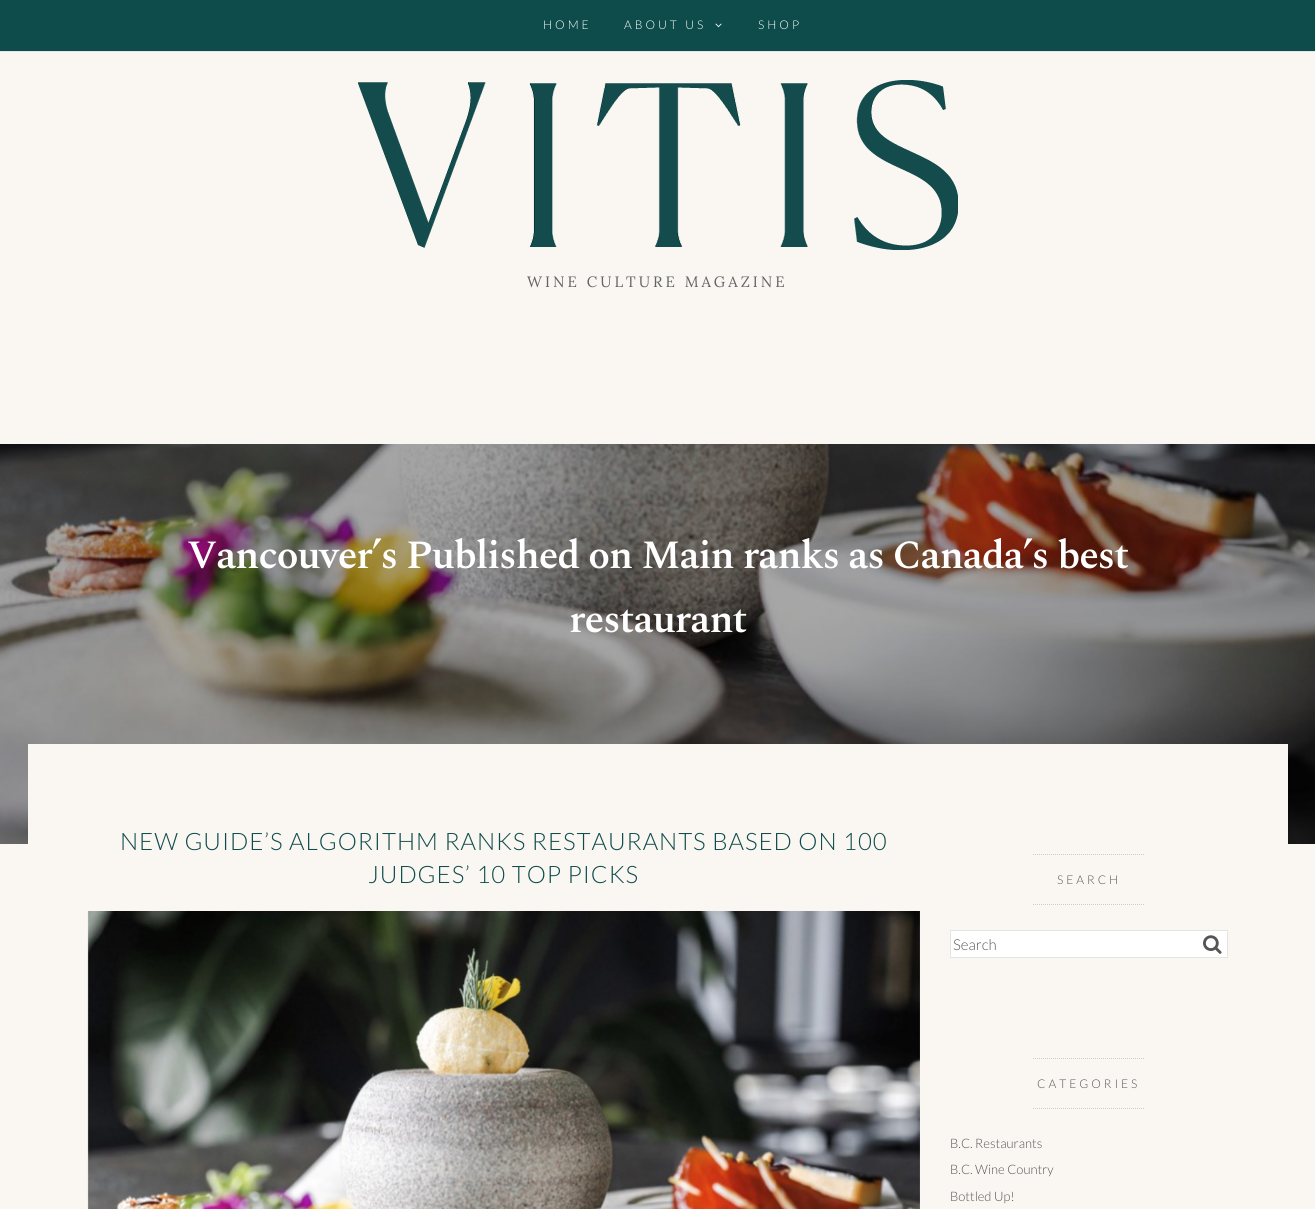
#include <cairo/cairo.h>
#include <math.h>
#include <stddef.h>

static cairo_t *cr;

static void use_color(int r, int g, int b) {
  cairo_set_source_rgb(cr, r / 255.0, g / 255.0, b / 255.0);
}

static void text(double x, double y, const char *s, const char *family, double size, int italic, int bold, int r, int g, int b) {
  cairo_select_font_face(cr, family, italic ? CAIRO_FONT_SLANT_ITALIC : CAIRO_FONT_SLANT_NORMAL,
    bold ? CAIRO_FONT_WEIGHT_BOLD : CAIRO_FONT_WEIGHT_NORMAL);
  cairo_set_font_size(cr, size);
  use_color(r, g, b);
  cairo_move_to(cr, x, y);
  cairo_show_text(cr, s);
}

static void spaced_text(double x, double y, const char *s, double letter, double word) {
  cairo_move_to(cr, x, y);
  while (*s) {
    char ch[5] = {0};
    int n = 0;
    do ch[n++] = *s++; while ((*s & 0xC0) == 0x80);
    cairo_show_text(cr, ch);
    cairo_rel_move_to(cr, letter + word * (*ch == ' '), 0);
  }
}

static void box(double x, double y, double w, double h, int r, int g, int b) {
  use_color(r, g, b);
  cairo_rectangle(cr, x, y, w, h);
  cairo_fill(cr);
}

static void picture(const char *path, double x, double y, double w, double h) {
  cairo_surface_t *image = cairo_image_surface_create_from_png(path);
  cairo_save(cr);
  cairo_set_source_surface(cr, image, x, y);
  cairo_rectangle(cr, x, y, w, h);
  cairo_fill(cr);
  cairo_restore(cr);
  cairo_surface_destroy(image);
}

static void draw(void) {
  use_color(250, 246, 242);
  cairo_paint(cr);
  box(0, 0, 1315, 51, 14, 76, 76);
  box(0, 51, 1315, 1, 228, 228, 228);
  picture("img_01.png", 715, 23, 7, 5);
  picture("img_02.png", 358, 80, 600, 170);
  picture("img_03.png", 0, 444, 1315, 400);
  box(28, 744, 1260, 100, 250, 246, 242);
  picture("img_04.png", 87, 911, 833, 298);
  cairo_new_path(cr);
  cairo_move_to(cr, 1033, 854.5);
  cairo_line_to(cr, 1144, 854.5);
  use_color(204, 204, 204);
  cairo_set_line_width(cr, 1);
  cairo_set_dash(cr, (double[]){1, 1}, 2, 0);
  cairo_stroke(cr);
  cairo_new_path(cr);
  cairo_move_to(cr, 1033, 904.5);
  cairo_line_to(cr, 1144, 904.5);
  cairo_stroke(cr);
  use_color(255, 255, 255);
  cairo_rectangle(cr, 950.5, 930.5, 277, 27);
  cairo_fill_preserve(cr);
  use_color(228, 228, 228);
  cairo_set_dash(cr, NULL, 0, 0);
  cairo_stroke(cr);
  picture("img_05.png", 1203, 935, 19, 19);
  cairo_new_path(cr);
  cairo_move_to(cr, 1033, 1058.5);
  cairo_line_to(cr, 1144, 1058.5);
  use_color(204, 204, 204);
  cairo_set_dash(cr, (double[]){1, 1}, 2, 0);
  cairo_stroke(cr);
  cairo_new_path(cr);
  cairo_move_to(cr, 1033, 1108.5);
  cairo_line_to(cr, 1144, 1108.5);
  cairo_stroke(cr);
  cairo_select_font_face(cr, "Lato Light", CAIRO_FONT_SLANT_NORMAL, CAIRO_FONT_WEIGHT_NORMAL);
  cairo_set_font_size(cr, 12);
  use_color(255, 255, 255);
  spaced_text(543, 29, "HOME", 3, 0);
  spaced_text(624, 29, "ABOUT US", 3, 0);
  spaced_text(758, 29, "SHOP", 3, 0);
  cairo_select_font_face(cr, "Lora", CAIRO_FONT_SLANT_NORMAL, CAIRO_FONT_WEIGHT_NORMAL);
  cairo_set_font_size(cr, 15);
  use_color(98, 99, 102);
  spaced_text(527, 287, "WINE CULTURE MAGAZINE", 3, 0);
  cairo_select_font_face(cr, "Spectral SemiBold", CAIRO_FONT_SLANT_NORMAL, CAIRO_FONT_WEIGHT_NORMAL);
  cairo_set_font_size(cr, 40);
  use_color(255, 255, 255);
  spaced_text(187, 568, "Vancouver’s Published on Main ranks as Canada’s best", -1, 0);
  spaced_text(569, 632, "restaurant", -1, 0);
  cairo_select_font_face(cr, "Lato Light", CAIRO_FONT_SLANT_NORMAL, CAIRO_FONT_WEIGHT_NORMAL);
  cairo_set_font_size(cr, 24);
  use_color(14, 76, 76);
  spaced_text(120, 850, "NEW GUIDE’S ALGORITHM RANKS RESTAURANTS BASED ON 100", 0.95, 0);
  spaced_text(368, 883, "JUDGES’ 10 TOP PICKS", 0.95, 0);
  cairo_set_font_size(cr, 12);
  use_color(85, 85, 85);
  spaced_text(1057, 884, "SEARCH", 3, 0);
  text(953, 950, "Search", "Lato Light", 15, 0, 0, 85, 85, 85);
  cairo_set_font_size(cr, 12);
  spaced_text(1037, 1088, "CATEGORIES", 3, 0);
  text(950, 1148, "B.C. Restaurants", "Lato Light", 13, 0, 0, 85, 85, 85);
  text(950, 1174, "B.C. Wine Country", "Lato Light", 13, 0, 0, 85, 85, 85);
  text(950, 1201, "Bottled Up!", "Lato Light", 13, 0, 0, 85, 85, 85);
}

int main(void) {
  cairo_surface_t *surface = cairo_image_surface_create(CAIRO_FORMAT_RGB24, 1315, 1209);
  cr = cairo_create(surface);
  cairo_font_options_t *options = cairo_font_options_create();
  cairo_font_options_set_hint_metrics(options, CAIRO_HINT_METRICS_OFF);
  cairo_font_options_set_hint_style(options, CAIRO_HINT_STYLE_NONE);
  cairo_set_font_options(cr, options);
  cairo_set_miter_limit(cr, 4);
  draw();
  cairo_surface_write_to_png(surface, "out.png");
  cairo_font_options_destroy(options);
  cairo_destroy(cr);
  cairo_surface_destroy(surface);
  return 0;
}
